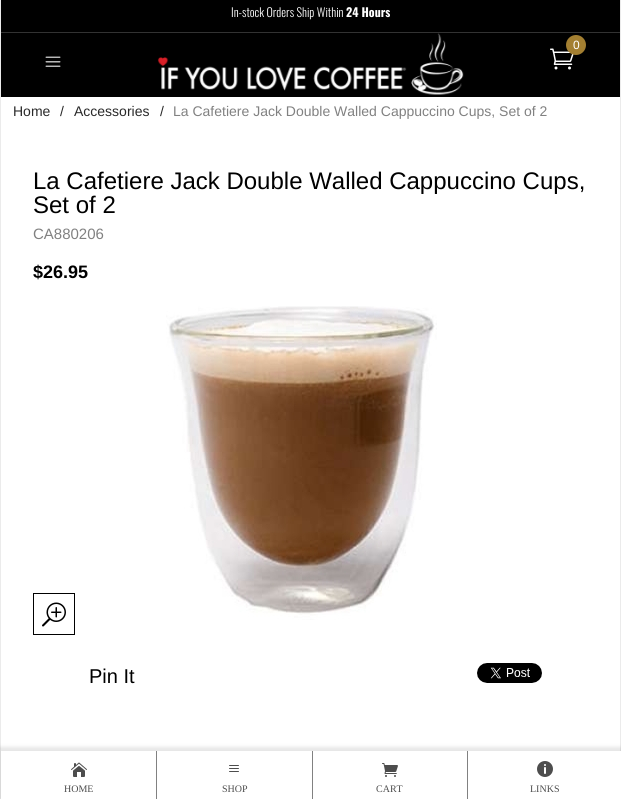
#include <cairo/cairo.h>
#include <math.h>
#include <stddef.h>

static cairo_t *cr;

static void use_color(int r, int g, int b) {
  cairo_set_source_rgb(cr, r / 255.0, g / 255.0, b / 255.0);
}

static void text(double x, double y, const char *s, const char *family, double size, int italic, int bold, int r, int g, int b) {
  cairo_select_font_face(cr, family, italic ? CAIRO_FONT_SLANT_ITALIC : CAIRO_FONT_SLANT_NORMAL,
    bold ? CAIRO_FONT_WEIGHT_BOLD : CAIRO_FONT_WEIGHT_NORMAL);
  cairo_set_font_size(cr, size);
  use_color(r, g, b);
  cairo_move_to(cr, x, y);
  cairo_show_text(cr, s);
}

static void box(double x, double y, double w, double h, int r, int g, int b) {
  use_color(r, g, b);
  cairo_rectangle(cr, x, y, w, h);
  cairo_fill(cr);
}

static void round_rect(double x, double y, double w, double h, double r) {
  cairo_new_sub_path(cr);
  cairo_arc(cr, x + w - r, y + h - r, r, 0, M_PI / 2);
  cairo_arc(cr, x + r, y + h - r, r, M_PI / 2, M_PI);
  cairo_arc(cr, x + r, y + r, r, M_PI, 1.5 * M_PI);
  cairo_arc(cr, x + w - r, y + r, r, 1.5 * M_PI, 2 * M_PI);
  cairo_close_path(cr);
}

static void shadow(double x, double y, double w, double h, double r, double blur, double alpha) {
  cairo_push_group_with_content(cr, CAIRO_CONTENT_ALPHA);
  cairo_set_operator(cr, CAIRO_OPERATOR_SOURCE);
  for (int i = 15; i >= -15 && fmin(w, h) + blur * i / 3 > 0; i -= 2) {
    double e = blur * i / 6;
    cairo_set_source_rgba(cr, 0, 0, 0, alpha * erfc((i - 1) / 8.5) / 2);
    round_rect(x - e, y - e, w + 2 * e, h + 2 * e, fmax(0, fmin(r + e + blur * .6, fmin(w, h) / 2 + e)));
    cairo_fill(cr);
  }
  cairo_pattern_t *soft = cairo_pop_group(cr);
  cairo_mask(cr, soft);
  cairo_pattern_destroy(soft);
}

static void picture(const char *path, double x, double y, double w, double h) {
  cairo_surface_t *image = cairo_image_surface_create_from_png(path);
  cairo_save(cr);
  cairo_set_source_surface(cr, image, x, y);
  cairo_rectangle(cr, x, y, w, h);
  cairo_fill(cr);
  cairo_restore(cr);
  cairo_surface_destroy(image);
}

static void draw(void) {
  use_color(255, 255, 255);
  cairo_paint(cr);
  box(620, 0, 1, 751, 235, 235, 235);
  box(0, 0, 1, 799, 235, 235, 235);
  box(1, 0, 619, 97, 0, 0, 0);
  box(1, 32, 619, 1, 50, 50, 50);
  picture("img_01.png", 157, 33, 307, 62);
  picture("img_02.png", 550, 48, 24, 22);
  use_color(163, 127, 49);
  cairo_arc(cr, 576, 45, 10, 0, 2 * M_PI);
  cairo_fill(cr);
  picture("img_03.png", 45, 56, 16, 11);
  cairo_rectangle(cr, 33.5, 593.5, 41, 41);
  use_color(0, 0, 0);
  cairo_set_line_width(cr, 1);
  cairo_stroke(cr);
  picture("img_04.png", 42, 602, 24, 25);
  picture("img_05.png", 166, 306, 271, 314);
  picture("img_06.png", 477, 663, 65, 20);
  use_color(0, 0, 0);
  shadow(-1, 747, 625, 52, 0, 2, 0.1);
  box(1, 751, 620, 48, 255, 255, 255);
  picture("img_07.png", 71, 762, 16, 15);
  box(156, 751, 1, 48, 129, 129, 129);
  picture("img_08.png", 229, 765, 10, 7);
  box(312, 751, 1, 48, 129, 129, 129);
  picture("img_09.png", 382, 763, 16, 14);
  box(467, 751, 1, 48, 129, 129, 129);
  picture("img_10.png", 537, 761, 16, 16);
  text(231, 17, "In-stock Orders Ship Within", "Oswald Light", 12, 0, 0, 255, 255, 255);
  text(346, 17, "24 Hours", "Oswald", 12, 0, 1, 255, 255, 255);
  text(573, 49, "0", "Liberation Sans", 12, 0, 0, 255, 255, 255);
  text(13, 116, "Home", "Liberation Sans", 14, 0, 0, 41, 41, 41);
  text(60, 116, "/", "Liberation Sans", 14, 0, 0, 41, 41, 41);
  text(74, 116, "Accessories", "Liberation Sans", 14, 0, 0, 41, 41, 41);
  text(160, 116, "/", "Liberation Sans", 14, 0, 0, 41, 41, 41);
  text(173, 116, "La Cafetiere Jack Double Walled Cappuccino Cups, Set of 2", "Liberation Sans", 14, 0, 0, 129, 129, 129);
  text(33, 189, "La Cafetiere Jack Double Walled Cappuccino Cups,", "Liberation Sans", 24, 0, 0, 0, 0, 0);
  text(33, 213, "Set of 2", "Liberation Sans", 24, 0, 0, 0, 0, 0);
  text(33, 239, "CA880206", "Liberation Sans", 15, 0, 0, 129, 129, 129);
  text(33, 278, "$26.95", "Liberation Sans", 18, 0, 1, 0, 0, 0);
  text(89, 683, "Pin It", "Liberation Sans", 20, 0, 0, 0, 0, 0);
  text(64, 792, "HOME", "Liberation Serif", 10, 0, 0, 77, 77, 77);
  text(222, 792, "SHOP", "Liberation Serif", 10, 0, 0, 77, 77, 77);
  text(376, 792, "CART", "Liberation Serif", 10, 0, 0, 77, 77, 77);
  text(530, 792, "LINKS", "Liberation Serif", 10, 0, 0, 77, 77, 77);
}

int main(void) {
  cairo_surface_t *surface = cairo_image_surface_create(CAIRO_FORMAT_RGB24, 621, 799);
  cr = cairo_create(surface);
  cairo_font_options_t *options = cairo_font_options_create();
  cairo_font_options_set_hint_metrics(options, CAIRO_HINT_METRICS_OFF);
  cairo_font_options_set_hint_style(options, CAIRO_HINT_STYLE_NONE);
  cairo_set_font_options(cr, options);
  cairo_set_miter_limit(cr, 4);
  draw();
  cairo_surface_write_to_png(surface, "out.png");
  cairo_font_options_destroy(options);
  cairo_destroy(cr);
  cairo_surface_destroy(surface);
  return 0;
}
